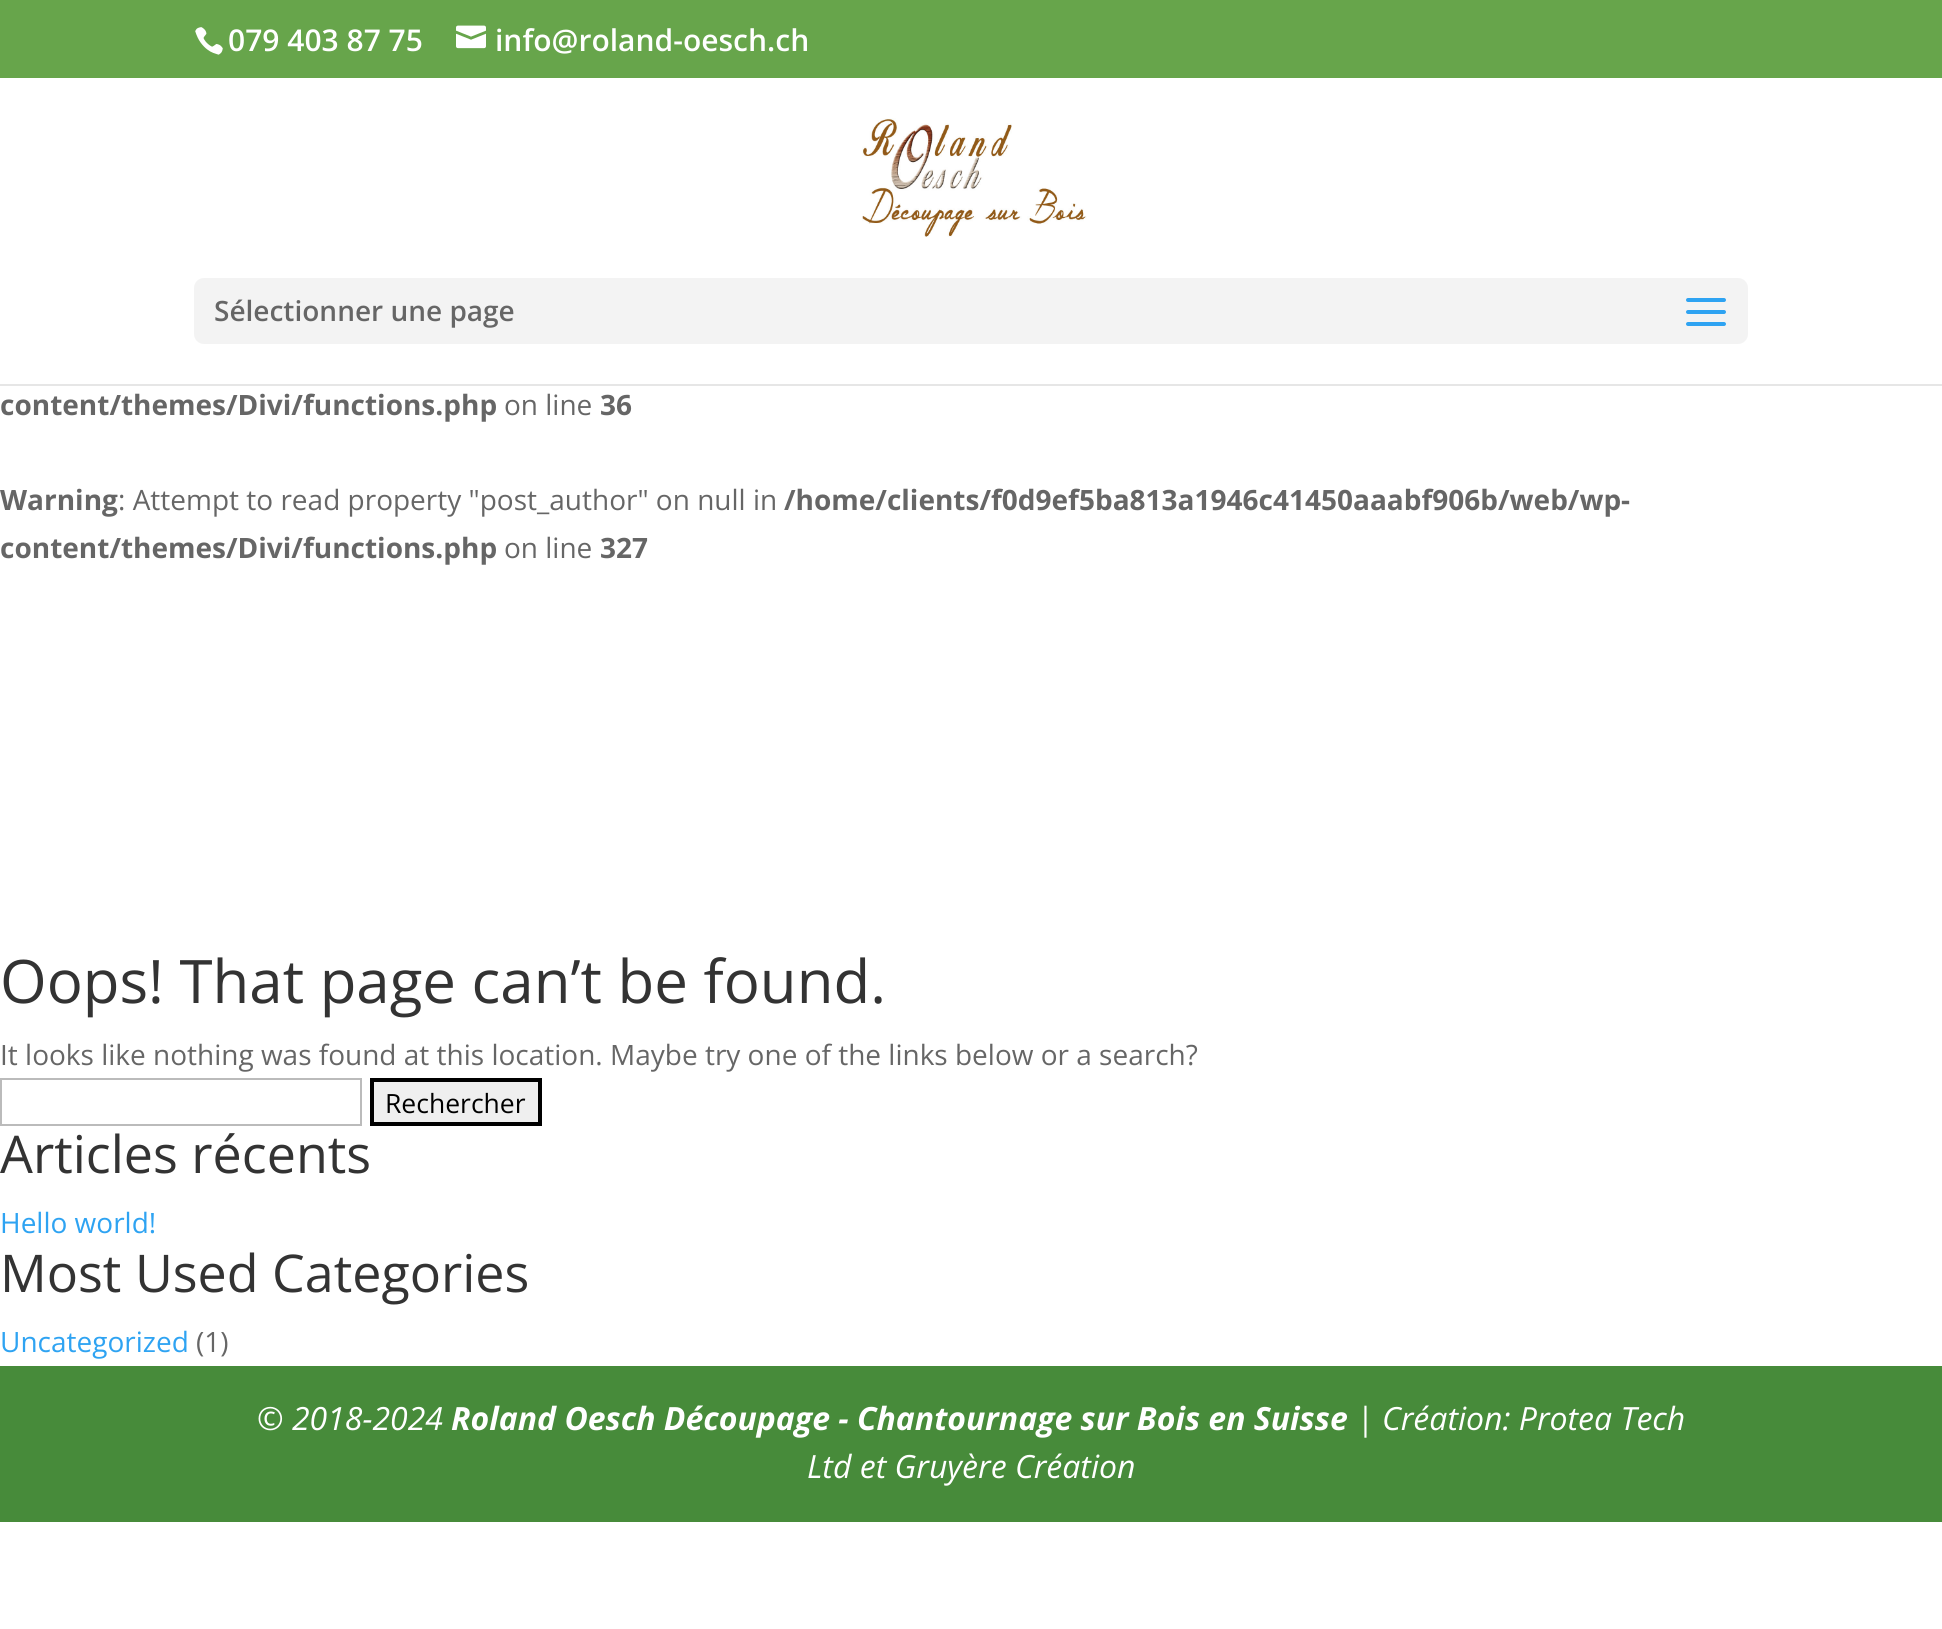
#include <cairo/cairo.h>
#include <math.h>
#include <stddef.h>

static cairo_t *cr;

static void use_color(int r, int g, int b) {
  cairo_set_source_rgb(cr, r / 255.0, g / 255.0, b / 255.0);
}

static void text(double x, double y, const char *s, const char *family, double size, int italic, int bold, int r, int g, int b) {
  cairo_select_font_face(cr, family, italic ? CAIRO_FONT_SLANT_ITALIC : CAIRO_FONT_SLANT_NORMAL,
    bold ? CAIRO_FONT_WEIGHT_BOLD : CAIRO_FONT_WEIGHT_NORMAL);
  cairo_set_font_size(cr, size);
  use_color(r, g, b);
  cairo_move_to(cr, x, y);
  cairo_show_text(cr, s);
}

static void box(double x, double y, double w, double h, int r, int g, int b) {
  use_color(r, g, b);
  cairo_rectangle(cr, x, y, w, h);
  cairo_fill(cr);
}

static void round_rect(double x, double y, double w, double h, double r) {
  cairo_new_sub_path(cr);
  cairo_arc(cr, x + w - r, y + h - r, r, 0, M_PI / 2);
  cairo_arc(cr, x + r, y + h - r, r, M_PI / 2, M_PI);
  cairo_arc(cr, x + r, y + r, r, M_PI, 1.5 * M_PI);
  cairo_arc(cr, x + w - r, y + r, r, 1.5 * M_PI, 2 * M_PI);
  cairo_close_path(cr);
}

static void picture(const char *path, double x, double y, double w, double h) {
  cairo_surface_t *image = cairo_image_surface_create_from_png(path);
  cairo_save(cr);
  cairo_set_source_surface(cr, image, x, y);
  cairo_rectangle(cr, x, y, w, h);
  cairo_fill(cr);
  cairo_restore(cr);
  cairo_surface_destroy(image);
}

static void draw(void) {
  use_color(255, 255, 255);
  cairo_paint(cr);
  box(0, 0, 1942, 78, 103, 165, 75);
  picture("img_01.png", 195, 27, 28, 28);
  picture("img_02.png", 456, 25, 30, 24);
  box(0, 384, 1942, 2, 230, 230, 230);
  picture("img_03.png", 862, 118, 225, 119);
  use_color(243, 243, 243);
  round_rect(194, 278, 1554, 66, 10);
  cairo_fill(cr);
  picture("img_04.png", 1686, 298, 40, 28);
  cairo_rectangle(cr, 1, 1079, 360, 46);
  use_color(187, 187, 187);
  cairo_stroke(cr);
  use_color(239, 239, 239);
  cairo_rectangle(cr, 372, 1080, 168, 44);
  cairo_fill_preserve(cr);
  use_color(0, 0, 0);
  cairo_set_line_width(cr, 4);
  cairo_stroke(cr);
  box(0, 1366, 1942, 156, 71, 139, 58);
  text(228, 51, "079 403 87 75", "Open Sans SemiBold", 30, 0, 0, 255, 255, 255);
  text(495, 51, "info@roland-oesch.ch", "Open Sans SemiBold", 30, 0, 0, 255, 255, 255);
  text(214, 321, "Sélectionner une page", "Open Sans SemiBold", 28, 0, 0, 102, 102, 102);
  text(0, 1003, "Oops! That page can’t be found.", "Open Sans", 60, 0, 0, 51, 51, 51);
  text(0, 1065, "It looks like nothing was found at this location. Maybe try one of the links below or a search?", "Open Sans", 28, 0, 0, 102, 102, 102);
  text(385, 1113, "Rechercher", "Open Sans", 26.5, 0, 0, 0, 0, 0);
  text(0, 1173, "Articles récents", "Open Sans", 52, 0, 0, 51, 51, 51);
  text(0, 1233, "Hello world!", "Open Sans", 28, 0, 0, 46, 163, 242);
  text(0, 1292, "Most Used Categories", "Open Sans", 52, 0, 0, 51, 51, 51);
  text(0, 1352, "Uncategorized", "Open Sans", 28, 0, 0, 46, 163, 242);
  text(196, 1352, "(1)", "Open Sans", 28, 0, 0, 102, 102, 102);
  text(257, 1430, "© 2018-2024", "Open Sans", 32, 1, 0, 255, 255, 255);
  text(451, 1430, "Roland Oesch Découpage - Chantournage sur Bois en Suisse", "Open Sans", 32, 1, 1, 255, 255, 255);
  text(1356, 1430, "| Création: Protea Tech", "Open Sans", 32, 1, 0, 255, 255, 255);
  text(807, 1478, "Ltd et Gruyère Création", "Open Sans", 32, 1, 0, 255, 255, 255);
  text(0, 415, "content/themes/Divi/functions.php", "Open Sans", 28, 0, 1, 102, 102, 102);
  text(504, 415, "on line", "Open Sans", 28, 0, 0, 102, 102, 102);
  text(600, 415, "36", "Open Sans", 28, 0, 1, 102, 102, 102);
  text(0, 510, "Warning", "Open Sans", 28, 0, 1, 102, 102, 102);
  text(118, 510, ": Attempt to read property \"post_author\" on null in", "Open Sans", 28, 0, 0, 102, 102, 102);
  text(784, 510, "/home/clients/f0d9ef5ba813a1946c41450aaabf906b/web/wp-", "Open Sans", 28, 0, 1, 102, 102, 102);
  text(0, 558, "content/themes/Divi/functions.php", "Open Sans", 28, 0, 1, 102, 102, 102);
  text(504, 558, "on line", "Open Sans", 28, 0, 0, 102, 102, 102);
  text(600, 558, "327", "Open Sans", 28, 0, 1, 102, 102, 102);
}

int main(void) {
  cairo_surface_t *surface = cairo_image_surface_create(CAIRO_FORMAT_RGB24, 1942, 1629);
  cr = cairo_create(surface);
  cairo_font_options_t *options = cairo_font_options_create();
  cairo_font_options_set_hint_metrics(options, CAIRO_HINT_METRICS_OFF);
  cairo_font_options_set_hint_style(options, CAIRO_HINT_STYLE_NONE);
  cairo_set_font_options(cr, options);
  cairo_set_miter_limit(cr, 4);
  draw();
  cairo_surface_write_to_png(surface, "out.png");
  cairo_font_options_destroy(options);
  cairo_destroy(cr);
  cairo_surface_destroy(surface);
  return 0;
}
